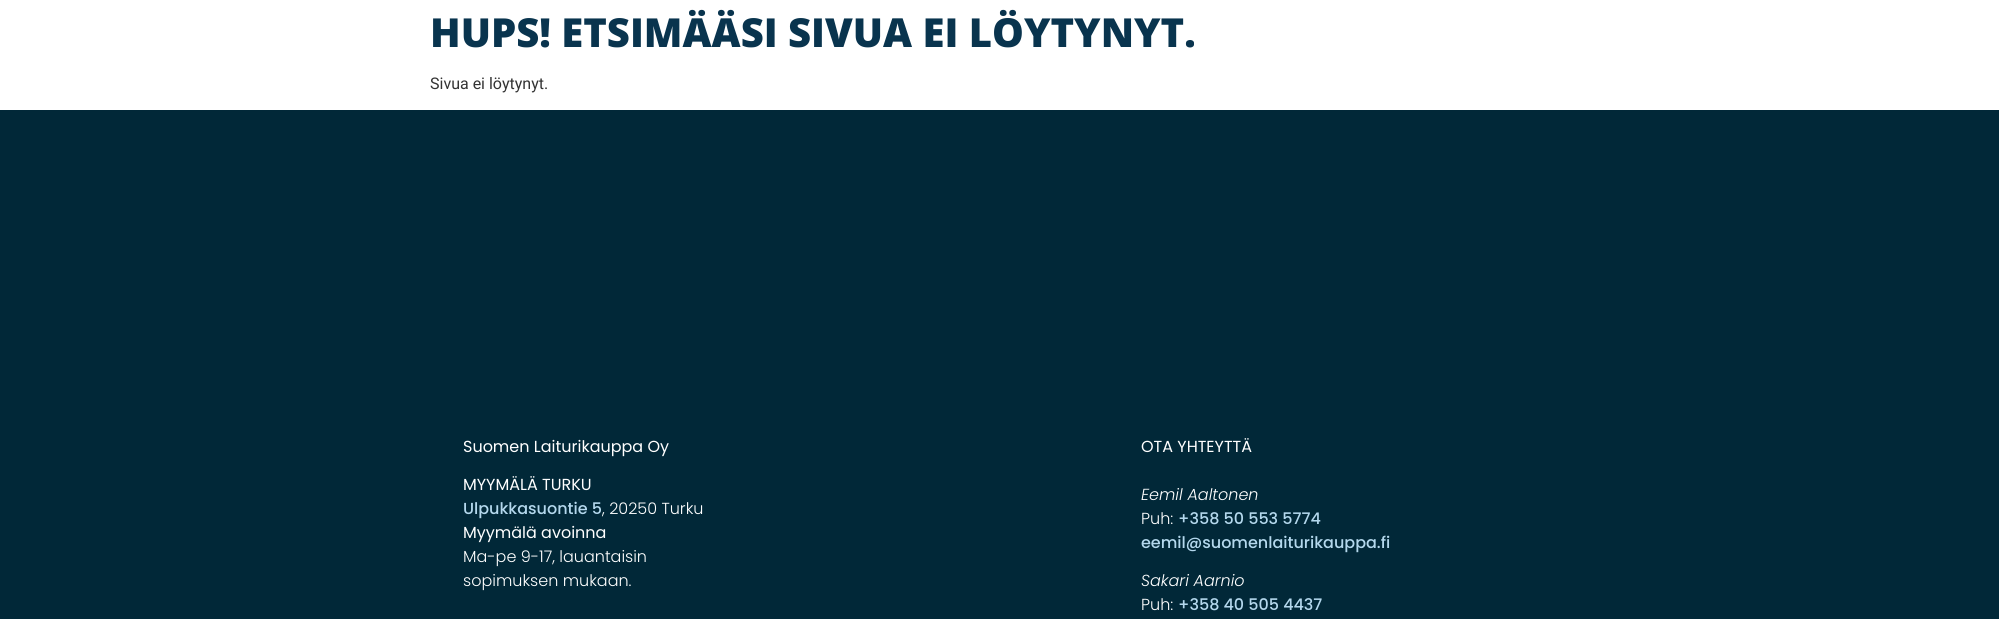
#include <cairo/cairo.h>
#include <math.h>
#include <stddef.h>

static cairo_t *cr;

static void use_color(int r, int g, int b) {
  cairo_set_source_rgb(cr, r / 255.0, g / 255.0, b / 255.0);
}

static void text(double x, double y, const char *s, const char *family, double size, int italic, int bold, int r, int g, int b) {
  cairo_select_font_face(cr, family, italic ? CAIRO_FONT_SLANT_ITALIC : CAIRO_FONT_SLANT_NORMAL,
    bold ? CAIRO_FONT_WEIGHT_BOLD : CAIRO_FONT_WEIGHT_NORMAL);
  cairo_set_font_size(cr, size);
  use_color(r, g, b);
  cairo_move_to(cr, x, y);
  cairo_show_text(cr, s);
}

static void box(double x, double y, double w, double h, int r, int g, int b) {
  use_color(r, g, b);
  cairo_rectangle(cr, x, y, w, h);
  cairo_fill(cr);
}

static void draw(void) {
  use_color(255, 255, 255);
  cairo_paint(cr);
  box(0, 110, 1999, 509, 1, 40, 56);
  text(430, 47, "HUPS! ETSIMÄÄSI SIVUA EI LÖYTYNYT.", "Open Sans ExtraBold", 40, 0, 0, 9, 52, 78);
  text(430, 89, "Sivua ei löytynyt.", "Roboto", 16, 0, 0, 51, 51, 51);
  text(463, 452, "Suomen Laiturikauppa Oy", "Poppins", 16, 0, 0, 255, 255, 255);
  text(463, 490, "MYYMÄLÄ TURKU", "Poppins", 16, 0, 0, 255, 255, 255);
  text(463, 514, "Ulpukkasuontie 5", "Poppins Medium", 16, 0, 0, 180, 216, 237);
  text(602, 514, ", 20250 Turku", "Poppins Light", 16, 0, 0, 255, 255, 255);
  text(463, 538, "Myymälä avoinna", "Poppins", 16, 0, 0, 255, 255, 255);
  text(463, 562, "Ma-pe 9-17, lauantaisin", "Poppins Light", 16, 0, 0, 255, 255, 255);
  text(463, 586, "sopimuksen mukaan.", "Poppins Light", 16, 0, 0, 255, 255, 255);
  text(1141, 452, "OTA YHTEYTTÄ", "Poppins", 16, 0, 0, 255, 255, 255);
  text(1141, 500, "Eemil Aaltonen", "Poppins Light", 16, 1, 0, 255, 255, 255);
  text(1141, 524, "Puh:", "Poppins Light", 16, 0, 0, 255, 255, 255);
  text(1178, 524, "+358 50 553 5774", "Poppins Medium", 16, 0, 0, 180, 216, 237);
  text(1141, 548, "eemil@suomenlaiturikauppa.fi", "Poppins Medium", 16, 0, 0, 180, 216, 237);
  text(1141, 586, "Sakari Aarnio", "Poppins Light", 16, 1, 0, 255, 255, 255);
  text(1141, 610, "Puh:", "Poppins Light", 16, 0, 0, 255, 255, 255);
  text(1178, 610, "+358 40 505 4437", "Poppins Medium", 16, 0, 0, 180, 216, 237);
}

int main(void) {
  cairo_surface_t *surface = cairo_image_surface_create(CAIRO_FORMAT_RGB24, 1999, 619);
  cr = cairo_create(surface);
  cairo_font_options_t *options = cairo_font_options_create();
  cairo_font_options_set_hint_metrics(options, CAIRO_HINT_METRICS_OFF);
  cairo_font_options_set_hint_style(options, CAIRO_HINT_STYLE_NONE);
  cairo_set_font_options(cr, options);
  cairo_set_miter_limit(cr, 4);
  draw();
  cairo_surface_write_to_png(surface, "out.png");
  cairo_font_options_destroy(options);
  cairo_destroy(cr);
  cairo_surface_destroy(surface);
  return 0;
}
